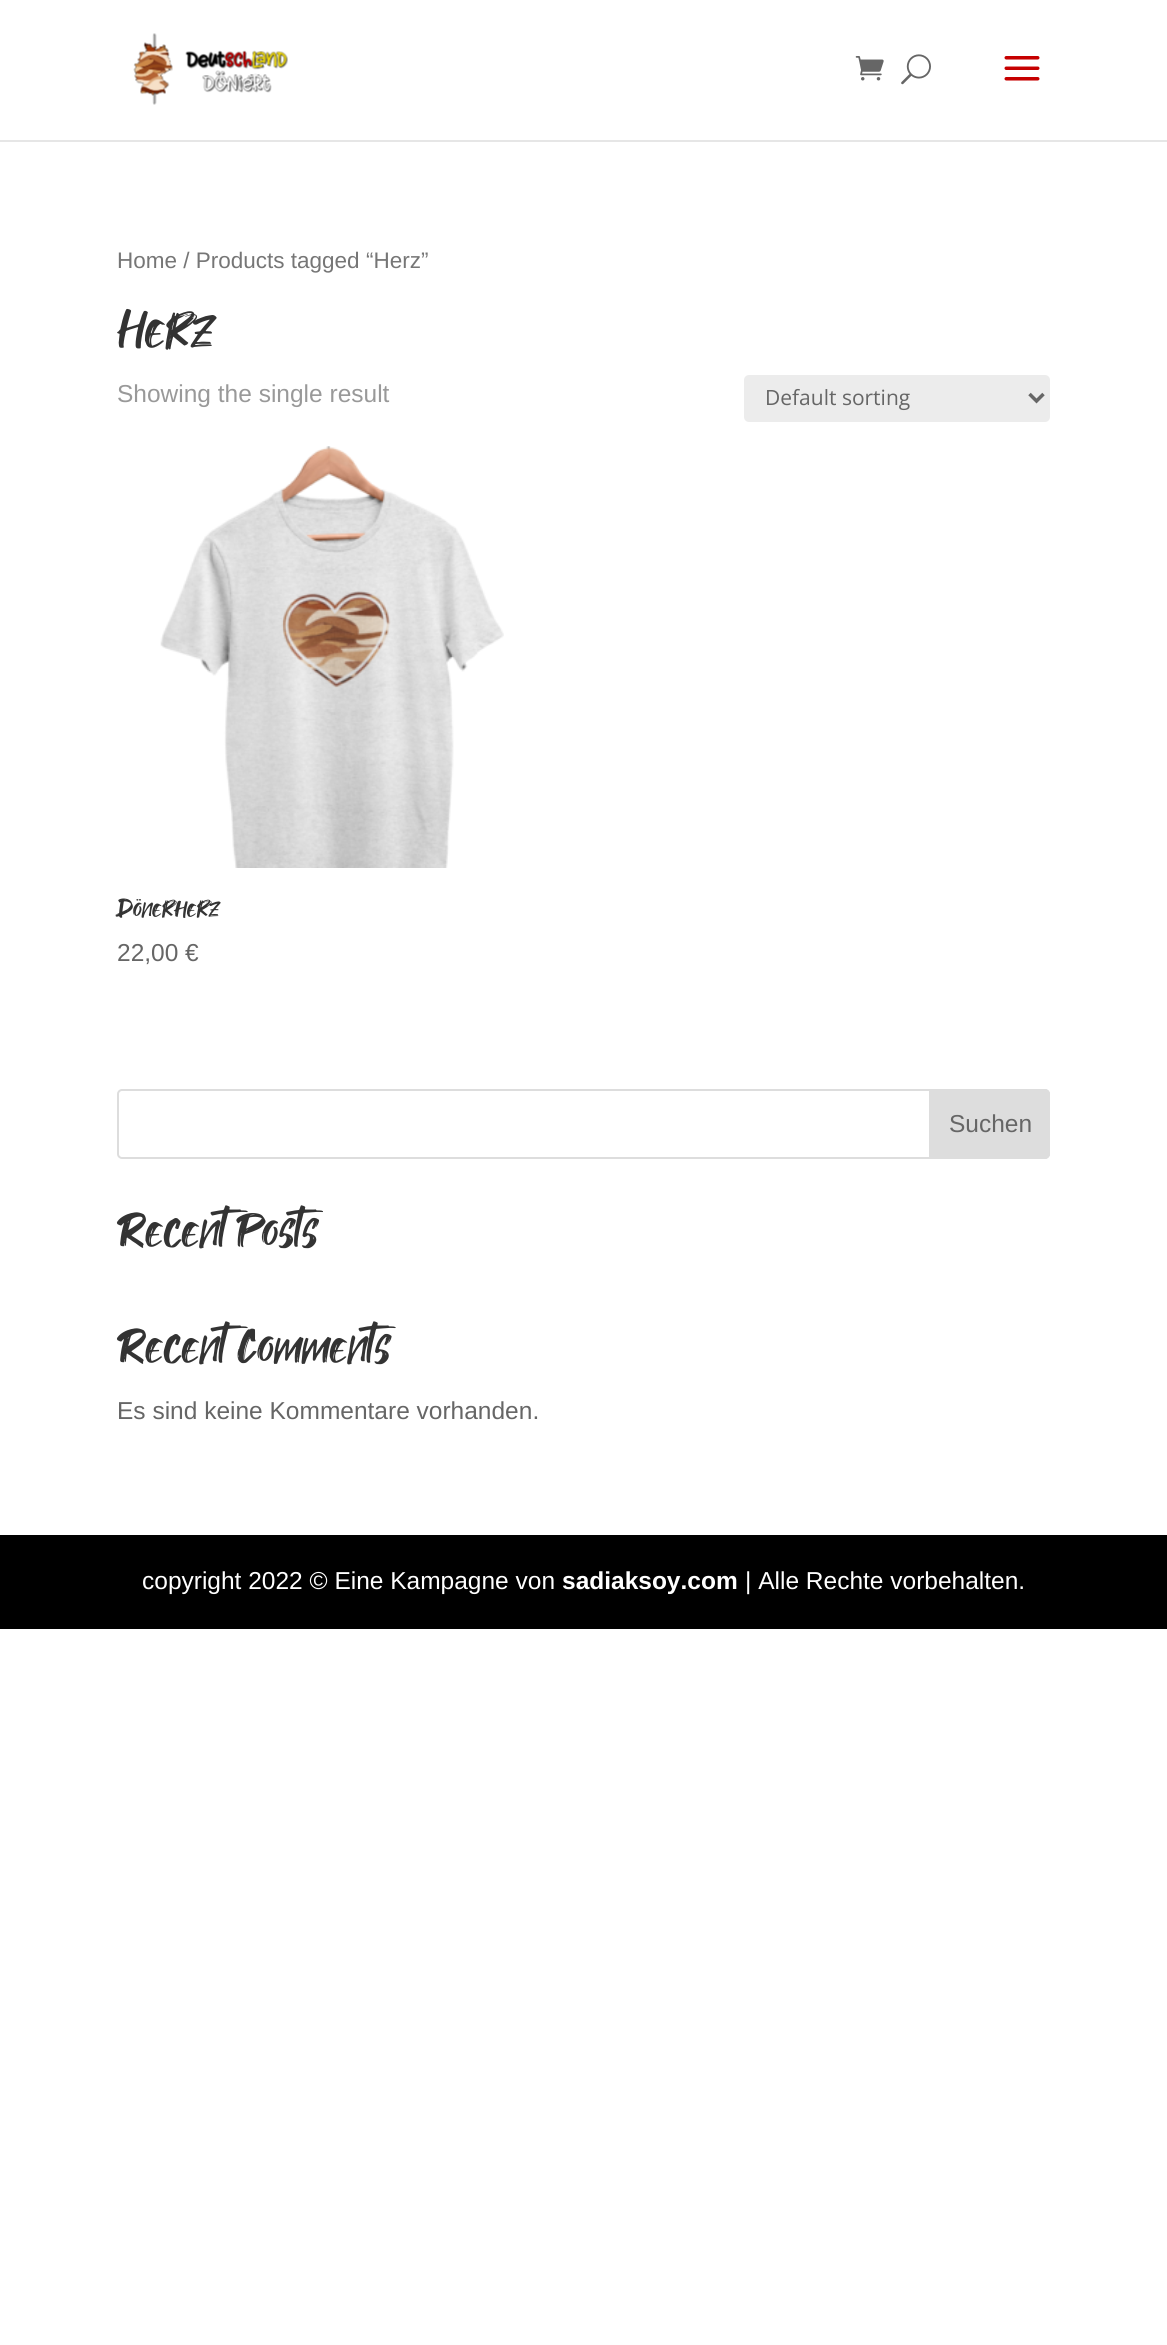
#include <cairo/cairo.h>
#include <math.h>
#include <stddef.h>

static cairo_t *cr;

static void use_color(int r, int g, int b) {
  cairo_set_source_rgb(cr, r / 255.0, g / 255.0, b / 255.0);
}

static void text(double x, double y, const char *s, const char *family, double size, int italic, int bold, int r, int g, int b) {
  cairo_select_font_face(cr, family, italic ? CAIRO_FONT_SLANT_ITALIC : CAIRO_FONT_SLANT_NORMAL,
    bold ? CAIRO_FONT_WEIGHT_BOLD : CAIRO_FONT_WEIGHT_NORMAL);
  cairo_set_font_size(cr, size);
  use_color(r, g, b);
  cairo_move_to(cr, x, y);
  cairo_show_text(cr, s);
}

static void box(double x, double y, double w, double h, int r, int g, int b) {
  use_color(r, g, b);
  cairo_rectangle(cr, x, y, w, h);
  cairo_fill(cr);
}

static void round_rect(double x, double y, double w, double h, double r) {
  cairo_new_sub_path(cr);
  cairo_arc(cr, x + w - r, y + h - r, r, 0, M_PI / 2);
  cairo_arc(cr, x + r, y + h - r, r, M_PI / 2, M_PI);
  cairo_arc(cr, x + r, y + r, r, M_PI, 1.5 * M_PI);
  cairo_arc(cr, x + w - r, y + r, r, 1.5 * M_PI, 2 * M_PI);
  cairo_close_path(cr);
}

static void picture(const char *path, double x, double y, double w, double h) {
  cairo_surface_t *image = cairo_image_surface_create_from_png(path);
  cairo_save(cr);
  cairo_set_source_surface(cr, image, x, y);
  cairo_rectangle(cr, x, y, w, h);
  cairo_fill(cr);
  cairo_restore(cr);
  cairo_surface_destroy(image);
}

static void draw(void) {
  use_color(255, 255, 255);
  cairo_paint(cr);
  box(0, 140, 1167, 2, 230, 230, 230);
  picture("img_01.png", 133, 33, 155, 72);
  picture("img_02.png", 855, 56, 29, 25);
  picture("img_03.png", 901, 54, 30, 31);
  picture("img_04.png", 1004, 56, 36, 25);
  use_color(236, 236, 236);
  round_rect(744, 375, 306, 47, 5);
  cairo_fill(cr);
  cairo_new_path(cr);
  cairo_move_to(cr, 1029.5, 394);
  cairo_line_to(cr, 1036.5, 401);
  cairo_line_to(cr, 1043.5, 394);
  use_color(102, 102, 102);
  cairo_set_line_width(cr, 3.5);
  cairo_stroke(cr);
  picture("img_05.png", 160, 446, 344, 422);
  round_rect(118, 1090, 931, 68, 4);
  use_color(221, 221, 221);
  cairo_set_line_width(cr, 2);
  cairo_stroke(cr);
  cairo_new_path(cr);
  cairo_move_to(cr, 930, 1090);
  cairo_line_to(cr, 1045, 1090);
  cairo_curve_to(cr, 1047, 1090, 1049, 1092, 1049, 1094);
  cairo_line_to(cr, 1049, 1154);
  cairo_curve_to(cr, 1049, 1156, 1047, 1158, 1045, 1158);
  cairo_line_to(cr, 930, 1158);
  cairo_close_path(cr);
  cairo_fill_preserve(cr);
  cairo_stroke(cr);
  box(0, 1535, 1167, 94, 0, 0, 0);
  text(117, 268, "Home / Products tagged “Herz”", "Liberation Sans", 22.5, 0, 0, 118, 118, 118);
  text(117, 348, "Herz", "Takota", 52, 0, 0, 51, 51, 51);
  text(117, 402, "Showing the single result", "Liberation Sans", 24.5, 0, 0, 153, 153, 153);
  text(765, 405, "Default sorting", "Open Sans", 21, 0, 0, 102, 102, 102);
  text(117, 917, "Dönerherz", "Takota", 24.5, 0, 0, 51, 51, 51);
  text(117, 961, "22,00 €", "Liberation Sans", 24.5, 0, 0, 102, 102, 102);
  text(949, 1132, "Suchen", "Liberation Sans", 24.5, 0, 0, 102, 102, 102);
  text(117, 1247, "Recent Posts", "Takota", 45.5, 0, 0, 51, 51, 51);
  text(117, 1363, "Recent Comments", "Takota", 45.5, 0, 0, 51, 51, 51);
  text(117, 1419, "Es sind keine Kommentare vorhanden.", "Liberation Sans", 24.5, 0, 0, 102, 102, 102);
  text(142, 1589, "copyright 2022 © Eine Kampagne von", "Liberation Sans", 24.5, 0, 0, 255, 255, 255);
  text(562, 1589, "sadiaksoy.com", "Liberation Sans", 24.5, 0, 1, 255, 255, 255);
  text(745, 1589, "| Alle Rechte vorbehalten.", "Liberation Sans", 24.5, 0, 0, 255, 255, 255);
}

int main(void) {
  cairo_surface_t *surface = cairo_image_surface_create(CAIRO_FORMAT_RGB24, 1167, 2345);
  cr = cairo_create(surface);
  cairo_font_options_t *options = cairo_font_options_create();
  cairo_font_options_set_hint_metrics(options, CAIRO_HINT_METRICS_OFF);
  cairo_font_options_set_hint_style(options, CAIRO_HINT_STYLE_NONE);
  cairo_set_font_options(cr, options);
  cairo_set_miter_limit(cr, 4);
  draw();
  cairo_surface_write_to_png(surface, "out.png");
  cairo_font_options_destroy(options);
  cairo_destroy(cr);
  cairo_surface_destroy(surface);
  return 0;
}
